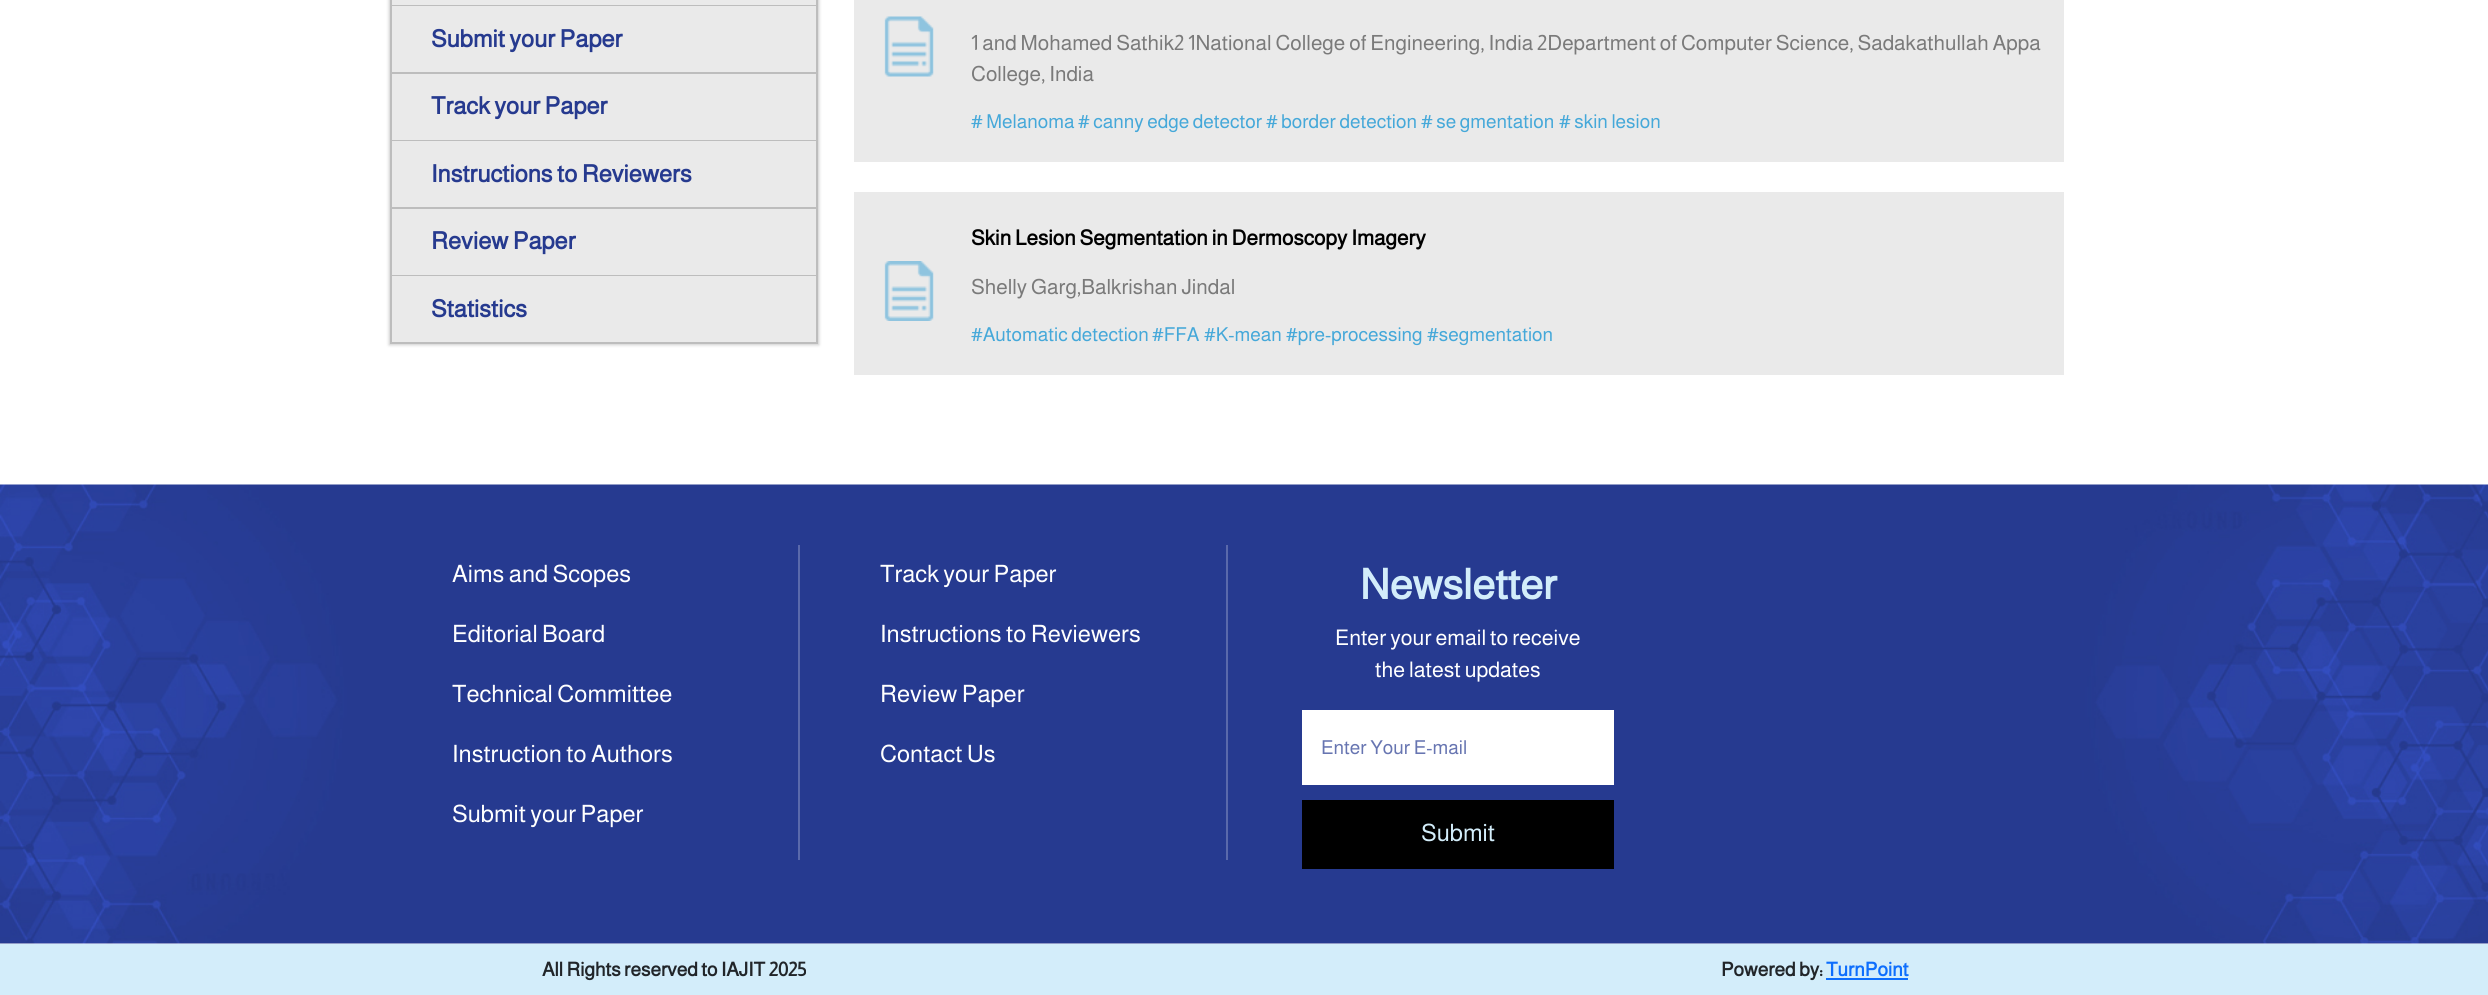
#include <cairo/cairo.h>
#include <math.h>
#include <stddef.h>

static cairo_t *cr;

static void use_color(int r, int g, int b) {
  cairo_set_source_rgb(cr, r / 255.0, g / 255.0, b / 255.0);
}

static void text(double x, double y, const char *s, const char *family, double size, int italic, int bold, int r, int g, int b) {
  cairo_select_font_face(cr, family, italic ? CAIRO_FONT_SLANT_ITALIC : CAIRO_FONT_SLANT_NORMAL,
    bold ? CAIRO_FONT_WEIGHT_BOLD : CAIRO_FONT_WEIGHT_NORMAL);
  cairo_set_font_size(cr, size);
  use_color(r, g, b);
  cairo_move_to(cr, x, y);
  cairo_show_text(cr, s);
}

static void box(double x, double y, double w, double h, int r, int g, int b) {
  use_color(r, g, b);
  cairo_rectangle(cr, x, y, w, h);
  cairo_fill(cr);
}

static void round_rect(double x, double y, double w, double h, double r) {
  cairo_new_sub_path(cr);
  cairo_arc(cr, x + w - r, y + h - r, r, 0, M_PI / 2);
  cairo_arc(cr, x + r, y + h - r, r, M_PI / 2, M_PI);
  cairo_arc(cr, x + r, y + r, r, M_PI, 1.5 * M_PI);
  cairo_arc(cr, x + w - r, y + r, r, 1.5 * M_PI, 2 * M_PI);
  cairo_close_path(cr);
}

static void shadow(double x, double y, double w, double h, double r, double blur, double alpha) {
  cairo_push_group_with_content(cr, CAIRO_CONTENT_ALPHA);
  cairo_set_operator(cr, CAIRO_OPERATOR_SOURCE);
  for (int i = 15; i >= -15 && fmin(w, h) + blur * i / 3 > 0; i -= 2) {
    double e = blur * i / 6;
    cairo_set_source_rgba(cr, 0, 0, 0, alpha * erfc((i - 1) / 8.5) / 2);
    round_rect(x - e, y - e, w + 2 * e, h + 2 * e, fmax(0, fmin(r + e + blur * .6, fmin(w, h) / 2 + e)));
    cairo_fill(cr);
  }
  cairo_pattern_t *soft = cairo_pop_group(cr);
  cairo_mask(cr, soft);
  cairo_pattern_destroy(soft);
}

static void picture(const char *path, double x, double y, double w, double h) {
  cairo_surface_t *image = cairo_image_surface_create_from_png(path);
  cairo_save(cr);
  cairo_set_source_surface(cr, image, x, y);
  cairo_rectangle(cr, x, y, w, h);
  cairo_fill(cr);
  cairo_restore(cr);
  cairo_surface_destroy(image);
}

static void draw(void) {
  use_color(255, 255, 255);
  cairo_paint(cr);
  use_color(204, 204, 204);
  shadow(389, -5, 430, 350, 0, 1.5, 1);
  box(816, 0, 2, 344, 189, 189, 189);
  box(390, 0, 2, 344, 189, 189, 189);
  box(392, 0, 424, 5, 234, 234, 234);
  box(392, 5, 424, 1, 189, 189, 189);
  box(392, 6, 424, 66, 234, 234, 234);
  box(392, 72, 424, 2, 189, 189, 189);
  box(392, 74, 424, 66, 234, 234, 234);
  box(392, 140, 424, 1, 189, 189, 189);
  box(392, 141, 424, 66, 234, 234, 234);
  box(392, 207, 424, 2, 189, 189, 189);
  box(392, 209, 424, 66, 234, 234, 234);
  box(392, 275, 424, 1, 189, 189, 189);
  box(392, 276, 424, 66, 234, 234, 234);
  box(392, 342, 424, 2, 189, 189, 189);
  box(854, 0, 1210, 162, 234, 234, 234);
  picture("img_01.png", 884, 16, 50, 61);
  box(854, 192, 1210, 183, 234, 234, 234);
  picture("img_02.png", 884, 261, 50, 60);
  picture("img_03.png", 0, 484, 2488, 460);
  box(798, 545, 2, 315, 90, 105, 171);
  box(1226, 545, 2, 315, 90, 105, 171);
  box(1302, 710, 312, 75, 255, 255, 255);
  box(1302, 800, 312, 69, 0, 0, 0);
  box(0, 944, 2488, 51, 211, 237, 250);
  box(1826, 978, 82, 2, 13, 110, 253);
  text(431, 47, "Submit your Paper", "Almarai", 24, 0, 1, 38, 58, 143);
  text(431, 114, "Track your Paper", "Almarai", 24, 0, 1, 38, 58, 143);
  text(431, 182, "Instructions to Reviewers", "Almarai", 24, 0, 1, 38, 58, 143);
  text(431, 249, "Review Paper", "Almarai", 24, 0, 1, 38, 58, 143);
  text(431, 317, "Statistics", "Almarai", 24, 0, 1, 38, 58, 143);
  text(971, 50, "1 and Mohamed Sathik2 1National College of Engineering, India 2Department of Computer Science, Sadakathullah Appa", "Almarai", 21, 0, 0, 122, 122, 122);
  text(971, 81, "College, India", "Almarai", 21, 0, 0, 122, 122, 122);
  text(971, 128, "# Melanoma", "Almarai", 19.25, 0, 0, 69, 168, 217);
  text(1078, 128, "# canny edge detector", "Almarai", 19.25, 0, 0, 69, 168, 217);
  text(1266, 128, "# border detection", "Almarai", 19.25, 0, 0, 69, 168, 217);
  text(1421, 128, "# se gmentation", "Almarai", 19.25, 0, 0, 69, 168, 217);
  text(1559, 128, "# skin lesion", "Almarai", 19.25, 0, 0, 69, 168, 217);
  text(971, 245, "Skin Lesion Segmentation in Dermoscopy Imagery", "Almarai", 21, 0, 1, 0, 0, 0);
  text(971, 294, "Shelly Garg,Balkrishan Jindal", "Almarai", 21, 0, 0, 122, 122, 122);
  text(971, 341, "#Automatic detection", "Almarai", 19.25, 0, 0, 69, 168, 217);
  text(1152, 341, "#FFA", "Almarai", 19.25, 0, 0, 69, 168, 217);
  text(1204, 341, "#K-mean", "Almarai", 19.25, 0, 0, 69, 168, 217);
  text(1286, 341, "#pre-processing", "Almarai", 19.25, 0, 0, 69, 168, 217);
  text(1427, 341, "#segmentation", "Almarai", 19.25, 0, 0, 69, 168, 217);
  text(452, 582, "Aims and Scopes", "Almarai", 24, 0, 0, 255, 255, 255);
  text(452, 642, "Editorial Board", "Almarai", 24, 0, 0, 255, 255, 255);
  text(452, 702, "Technical Committee", "Almarai", 24, 0, 0, 255, 255, 255);
  text(452, 762, "Instruction to Authors", "Almarai", 24, 0, 0, 255, 255, 255);
  text(452, 822, "Submit your Paper", "Almarai", 24, 0, 0, 255, 255, 255);
  text(880, 582, "Track your Paper", "Almarai", 24, 0, 0, 255, 255, 255);
  text(880, 642, "Instructions to Reviewers", "Almarai", 24, 0, 0, 255, 255, 255);
  text(880, 702, "Review Paper", "Almarai", 24, 0, 0, 255, 255, 255);
  text(880, 762, "Contact Us", "Almarai", 24, 0, 0, 255, 255, 255);
  text(1360, 599, "Newsletter", "Almarai", 42, 0, 1, 211, 237, 250);
  text(1335, 645, "Enter your email to receive", "Almarai", 21.6, 0, 0, 255, 255, 255);
  text(1375, 677, "the latest updates", "Almarai", 21.6, 0, 0, 255, 255, 255);
  text(1321, 754, "Enter Your E-mail", "Almarai", 19.25, 0, 0, 103, 117, 177);
  text(1421, 841, "Submit", "Almarai", 24, 0, 0, 211, 237, 250);
  text(542, 976, "All Rights reserved to IAJIT 2025", "Almarai", 19.25, 0, 1, 33, 37, 41);
  text(1721, 976, "Powered by:", "Almarai", 19.25, 0, 1, 33, 37, 41);
  text(1826, 976, "TurnPoint", "Almarai", 19.25, 0, 1, 13, 110, 253);
}

int main(void) {
  cairo_surface_t *surface = cairo_image_surface_create(CAIRO_FORMAT_RGB24, 2488, 995);
  cr = cairo_create(surface);
  cairo_font_options_t *options = cairo_font_options_create();
  cairo_font_options_set_hint_metrics(options, CAIRO_HINT_METRICS_OFF);
  cairo_font_options_set_hint_style(options, CAIRO_HINT_STYLE_NONE);
  cairo_set_font_options(cr, options);
  cairo_set_miter_limit(cr, 4);
  draw();
  cairo_surface_write_to_png(surface, "out.png");
  cairo_font_options_destroy(options);
  cairo_destroy(cr);
  cairo_surface_destroy(surface);
  return 0;
}
